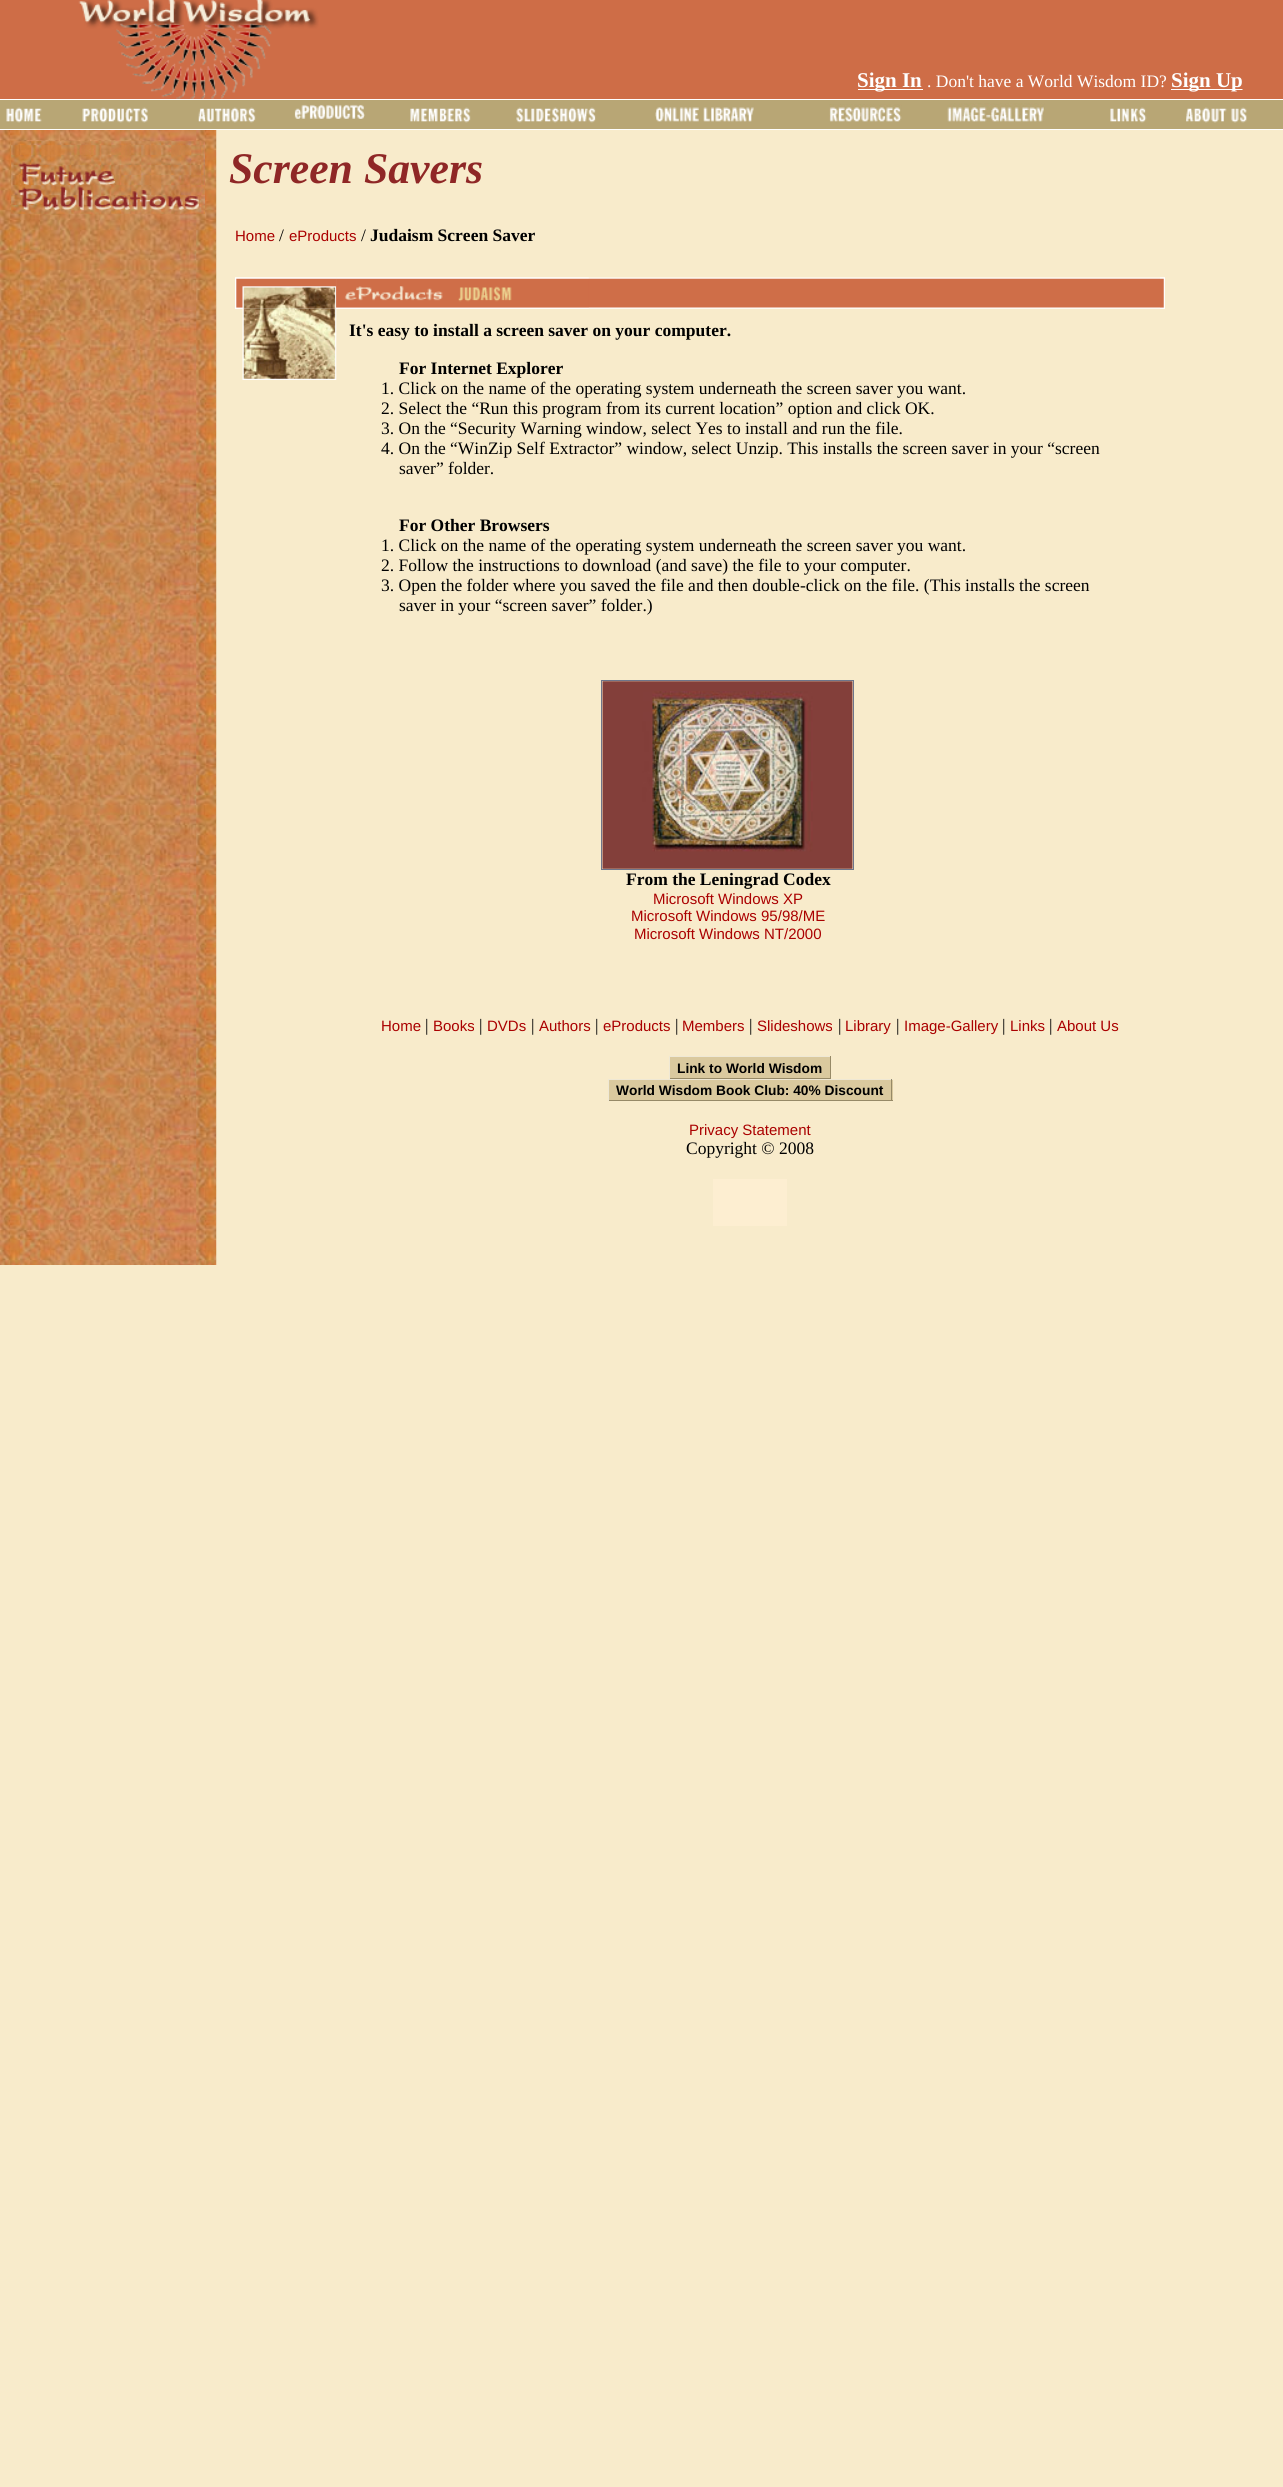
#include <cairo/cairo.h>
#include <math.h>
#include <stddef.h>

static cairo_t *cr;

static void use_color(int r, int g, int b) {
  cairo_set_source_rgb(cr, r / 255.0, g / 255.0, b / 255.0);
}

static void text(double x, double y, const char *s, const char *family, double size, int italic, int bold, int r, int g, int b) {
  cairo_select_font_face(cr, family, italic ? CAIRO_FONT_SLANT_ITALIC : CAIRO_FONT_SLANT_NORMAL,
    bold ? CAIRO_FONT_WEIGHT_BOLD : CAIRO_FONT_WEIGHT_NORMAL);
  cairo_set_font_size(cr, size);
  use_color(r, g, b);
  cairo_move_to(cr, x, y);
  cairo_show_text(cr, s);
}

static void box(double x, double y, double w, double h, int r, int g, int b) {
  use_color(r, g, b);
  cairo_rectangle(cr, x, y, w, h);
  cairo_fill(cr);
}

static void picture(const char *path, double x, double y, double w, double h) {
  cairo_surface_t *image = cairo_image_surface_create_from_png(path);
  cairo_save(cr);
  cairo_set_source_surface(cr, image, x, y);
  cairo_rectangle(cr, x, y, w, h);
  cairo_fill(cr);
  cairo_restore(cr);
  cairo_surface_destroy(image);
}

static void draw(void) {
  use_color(248, 235, 203);
  cairo_paint(cr);
  box(0, 0, 1283, 99, 206, 109, 71);
  picture("img_01.png", 78, 0, 241, 99);
  box(858, 89, 65, 1, 255, 255, 255);
  box(1171, 89, 72, 1, 255, 255, 255);
  box(1242, 89, 1, 1, 230, 182, 163);
  box(0, 100, 1283, 29, 184, 166, 117);
  box(0, 99, 1283, 1, 255, 255, 255);
  box(0, 129, 1283, 1, 255, 255, 255);
  picture("img_02.png", 6, 107, 36, 16);
  picture("img_03.png", 82, 107, 66, 16);
  picture("img_04.png", 198, 107, 58, 16);
  picture("img_05.png", 294, 104, 71, 15);
  picture("img_06.png", 410, 107, 61, 16);
  picture("img_07.png", 516, 107, 80, 16);
  picture("img_08.png", 655, 107, 99, 15);
  picture("img_09.png", 829, 104, 73, 18);
  picture("img_10.png", 947, 103, 98, 19);
  picture("img_11.png", 1110, 107, 37, 16);
  picture("img_12.png", 1186, 107, 61, 16);
  picture("img_13.png", 0, 130, 217, 1135);
  picture("img_14.png", 11, 141, 194, 73);
  picture("img_15.png", 235, 277, 102, 32);
  picture("img_17.png", 336, 277, 799, 32);
  picture("img_16.png", 235, 277, 102, 32);
  picture("img_18.png", 336, 277, 253, 32);
  picture("img_19.png", 1135, 277, 30, 32);
  picture("img_20.png", 1160, 277, 5, 32);
  picture("img_21.png", 242, 308, 95, 72);
  cairo_rectangle(cr, 601.5, 680.5, 252, 189);
  use_color(110, 118, 139);
  cairo_set_line_width(cr, 1);
  cairo_stroke(cr);
  picture("img_22.png", 602, 681, 251, 188);
  box(670, 1057, 160, 21, 218, 201, 158);
  box(669, 1056, 162, 1, 239, 232, 213);
  box(830, 1056, 1, 23, 150, 137, 103);
  box(669, 1078, 162, 1, 150, 137, 103);
  box(669, 1056, 1, 23, 239, 232, 213);
  box(609, 1080, 284, 20, 218, 201, 158);
  box(608, 1079, 285, 1, 239, 232, 213);
  box(891, 1079, 1, 22, 150, 137, 103);
  box(608, 1100, 285, 1, 150, 137, 103);
  box(608, 1079, 1, 22, 239, 232, 213);
  box(713, 1179, 74, 47, 253, 238, 209);
  text(857, 87, "Sign In", "Liberation Serif", 21, 0, 1, 255, 255, 255);
  text(927, 87, ". Don't have a World Wisdom ID?", "Liberation Serif", 17.5, 0, 0, 255, 255, 255);
  text(1171, 87, "Sign Up", "Liberation Serif", 21, 0, 1, 255, 255, 255);
  text(229, 183, "Screen Savers", "Liberation Serif", 43.75, 1, 1, 143, 39, 38);
  text(235, 241, "Home", "Liberation Sans", 15, 0, 0, 170, 0, 0);
  text(279, 241, "/", "Liberation Serif", 17.5, 0, 0, 0, 0, 0);
  text(289, 241, "eProducts", "Liberation Sans", 15, 0, 0, 170, 0, 0);
  text(361, 241, "/", "Liberation Serif", 17.5, 0, 0, 0, 0, 0);
  text(370, 241, "Judaism Screen Saver", "Liberation Serif", 17.5, 0, 1, 0, 0, 0);
  text(349, 336, "It's easy to install a screen saver on your computer.", "Liberation Serif", 17.5, 0, 1, 0, 0, 0);
  text(399, 374, "For Internet Explorer", "Liberation Serif", 17.5, 0, 1, 0, 0, 0);
  text(381, 394, "1. Click on the name of the operating system underneath the screen saver you want.", "Liberation Serif", 17.5, 0, 0, 0, 0, 0);
  text(381, 414, "2. Select the “Run this program from its current location” option and click OK.", "Liberation Serif", 17.5, 0, 0, 0, 0, 0);
  text(381, 434, "3. On the “Security Warning window, select Yes to install and run the file.", "Liberation Serif", 17.5, 0, 0, 0, 0, 0);
  text(381, 454, "4. On the “WinZip Self Extractor” window, select Unzip. This installs the screen saver in your “screen", "Liberation Serif", 17.5, 0, 0, 0, 0, 0);
  text(399, 474, "saver” folder.", "Liberation Serif", 17.5, 0, 0, 0, 0, 0);
  text(399, 531, "For Other Browsers", "Liberation Serif", 17.5, 0, 1, 0, 0, 0);
  text(381, 551, "1. Click on the name of the operating system underneath the screen saver you want.", "Liberation Serif", 17.5, 0, 0, 0, 0, 0);
  text(381, 571, "2. Follow the instructions to download (and save) the file to your computer.", "Liberation Serif", 17.5, 0, 0, 0, 0, 0);
  text(381, 591, "3. Open the folder where you saved the file and then double-click on the file. (This installs the screen", "Liberation Serif", 17.5, 0, 0, 0, 0, 0);
  text(399, 611, "saver in your “screen saver” folder.)", "Liberation Serif", 17.5, 0, 0, 0, 0, 0);
  text(626, 885, "From the Leningrad Codex", "Liberation Serif", 17.5, 0, 1, 0, 0, 0);
  text(653, 904, "Microsoft Windows XP", "Liberation Sans", 15, 0, 0, 170, 0, 0);
  text(631, 921, "Microsoft Windows 95/98/ME", "Liberation Sans", 15, 0, 0, 170, 0, 0);
  text(634, 939, "Microsoft Windows NT/2000", "Liberation Sans", 15, 0, 0, 170, 0, 0);
  text(381, 1031, "Home", "Liberation Sans", 15, 0, 0, 170, 0, 0);
  text(425, 1031, "|", "Liberation Serif", 17.5, 0, 0, 0, 0, 0);
  text(433, 1031, "Books", "Liberation Sans", 15, 0, 0, 170, 0, 0);
  text(479, 1031, "|", "Liberation Serif", 17.5, 0, 0, 0, 0, 0);
  text(487, 1031, "DVDs", "Liberation Sans", 15, 0, 0, 170, 0, 0);
  text(531, 1031, "|", "Liberation Serif", 17.5, 0, 0, 0, 0, 0);
  text(539, 1031, "Authors", "Liberation Sans", 15, 0, 0, 170, 0, 0);
  text(595, 1031, "|", "Liberation Serif", 17.5, 0, 0, 0, 0, 0);
  text(603, 1031, "eProducts", "Liberation Sans", 15, 0, 0, 170, 0, 0);
  text(675, 1031, "|", "Liberation Serif", 17.5, 0, 0, 0, 0, 0);
  text(682, 1031, "Members", "Liberation Sans", 15, 0, 0, 170, 0, 0);
  text(749, 1031, "|", "Liberation Serif", 17.5, 0, 0, 0, 0, 0);
  text(757, 1031, "Slideshows", "Liberation Sans", 15, 0, 0, 170, 0, 0);
  text(838, 1031, "|", "Liberation Serif", 17.5, 0, 0, 0, 0, 0);
  text(845, 1031, "Library", "Liberation Sans", 15, 0, 0, 170, 0, 0);
  text(896, 1031, "|", "Liberation Serif", 17.5, 0, 0, 0, 0, 0);
  text(904, 1031, "Image-Gallery", "Liberation Sans", 15, 0, 0, 170, 0, 0);
  text(1002, 1031, "|", "Liberation Serif", 17.5, 0, 0, 0, 0, 0);
  text(1010, 1031, "Links", "Liberation Sans", 15, 0, 0, 170, 0, 0);
  text(1049, 1031, "|", "Liberation Serif", 17.5, 0, 0, 0, 0, 0);
  text(1057, 1031, "About Us", "Liberation Sans", 15, 0, 0, 170, 0, 0);
  text(677, 1073, "Link to World Wisdom", "Liberation Sans", 13.75, 0, 1, 0, 0, 0);
  text(616, 1095, "World Wisdom Book Club: 40% Discount", "Liberation Sans", 13.75, 0, 1, 0, 0, 0);
  text(689, 1135, "Privacy Statement", "Liberation Sans", 15, 0, 0, 170, 0, 0);
  text(686, 1154, "Copyright © 2008", "Liberation Serif", 17.5, 0, 0, 0, 0, 0);
}

int main(void) {
  cairo_surface_t *surface = cairo_image_surface_create(CAIRO_FORMAT_RGB24, 1283, 2487);
  cr = cairo_create(surface);
  cairo_font_options_t *options = cairo_font_options_create();
  cairo_font_options_set_hint_metrics(options, CAIRO_HINT_METRICS_OFF);
  cairo_font_options_set_hint_style(options, CAIRO_HINT_STYLE_NONE);
  cairo_set_font_options(cr, options);
  cairo_set_miter_limit(cr, 4);
  draw();
  cairo_surface_write_to_png(surface, "out.png");
  cairo_font_options_destroy(options);
  cairo_destroy(cr);
  cairo_surface_destroy(surface);
  return 0;
}
